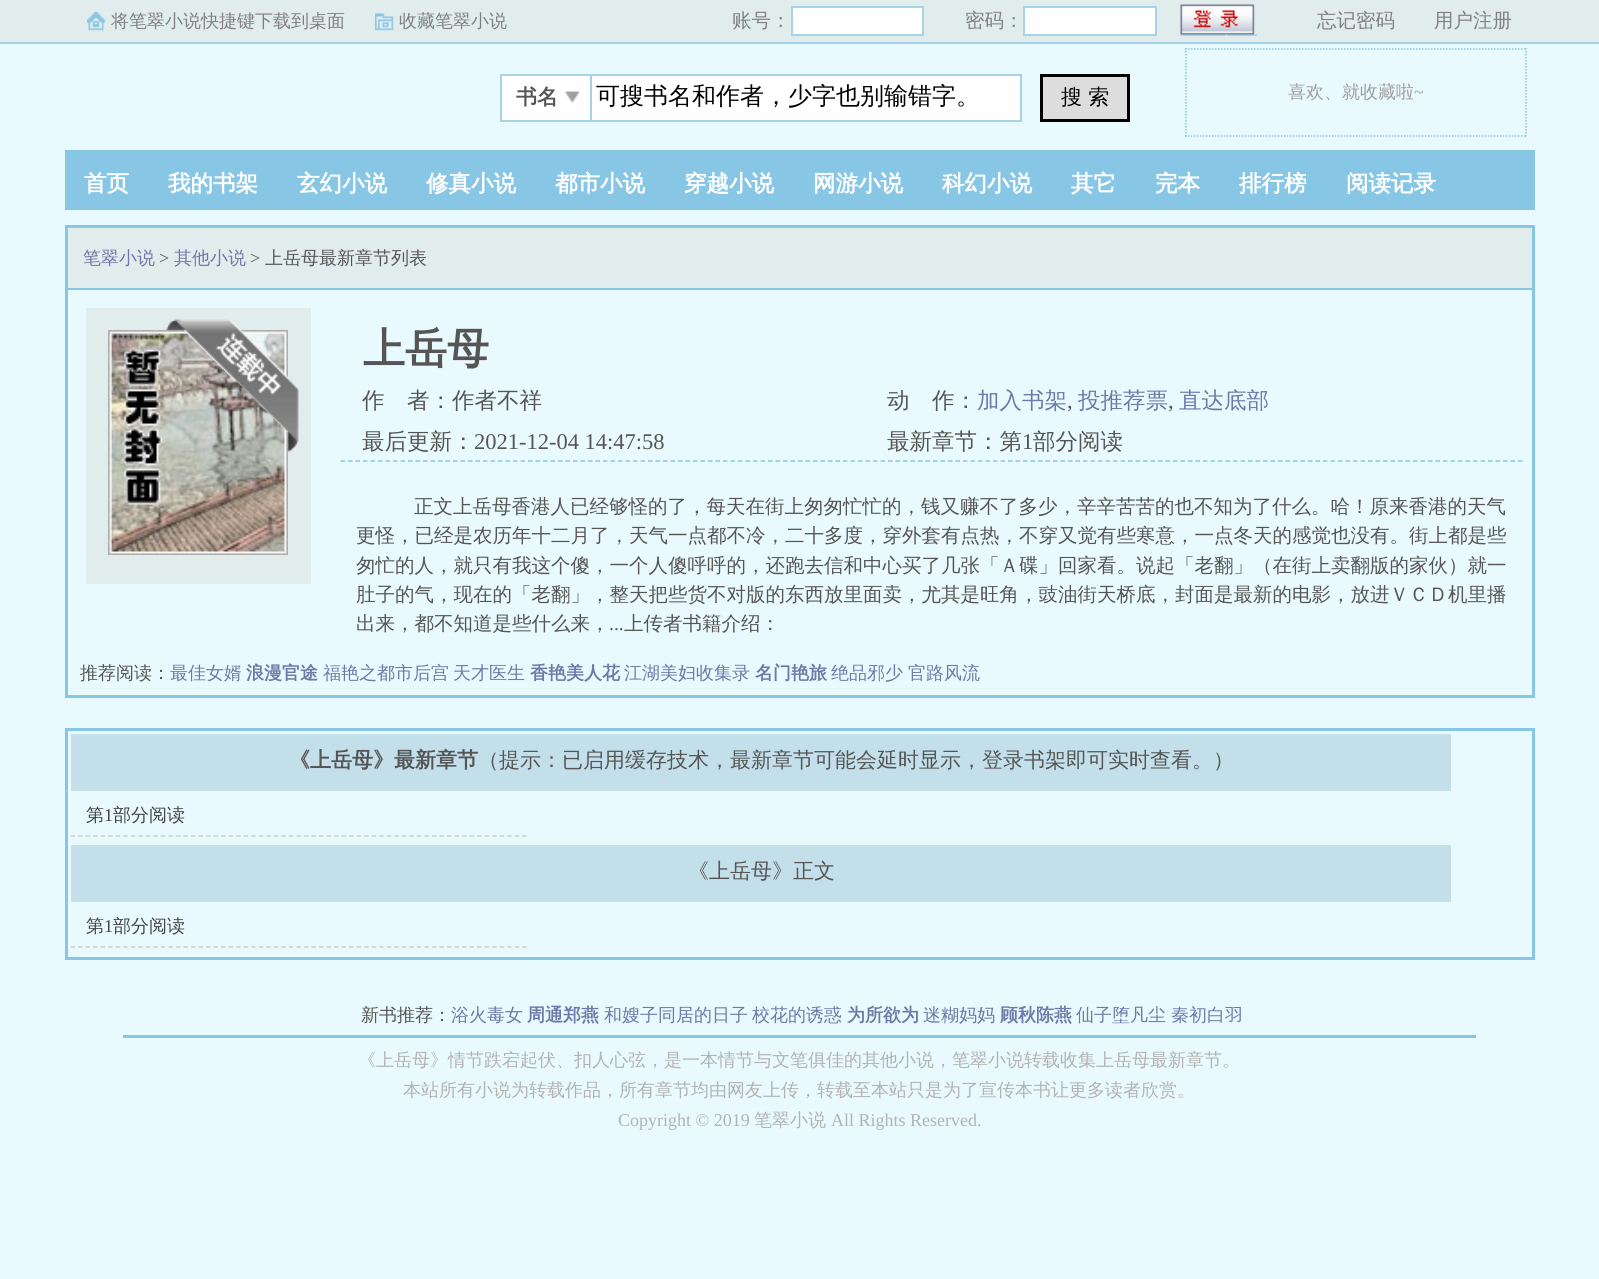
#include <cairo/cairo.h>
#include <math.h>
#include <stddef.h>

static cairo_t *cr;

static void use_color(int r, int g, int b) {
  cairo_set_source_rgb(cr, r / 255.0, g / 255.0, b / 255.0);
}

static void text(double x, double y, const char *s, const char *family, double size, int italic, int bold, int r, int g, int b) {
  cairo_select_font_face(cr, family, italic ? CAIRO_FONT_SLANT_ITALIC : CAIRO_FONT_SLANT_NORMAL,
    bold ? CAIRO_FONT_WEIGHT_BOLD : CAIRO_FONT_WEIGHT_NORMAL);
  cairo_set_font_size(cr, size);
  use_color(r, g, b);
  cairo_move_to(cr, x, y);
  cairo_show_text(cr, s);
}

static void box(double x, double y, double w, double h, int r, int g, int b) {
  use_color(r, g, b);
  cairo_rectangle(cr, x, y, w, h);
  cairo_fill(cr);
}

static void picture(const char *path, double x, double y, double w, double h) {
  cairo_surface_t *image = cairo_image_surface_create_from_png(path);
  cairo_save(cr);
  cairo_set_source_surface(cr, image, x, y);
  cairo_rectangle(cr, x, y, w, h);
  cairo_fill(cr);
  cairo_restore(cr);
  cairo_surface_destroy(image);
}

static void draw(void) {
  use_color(233, 250, 255);
  cairo_paint(cr);
  box(0, 0, 1599, 42, 225, 236, 237);
  box(0, 42, 1599, 2, 166, 211, 232);
  picture("img_01.png", 87, 12, 19, 19);
  picture("img_02.png", 375, 13, 19, 18);
  use_color(255, 255, 255);
  cairo_rectangle(cr, 792, 7, 131, 28);
  cairo_fill_preserve(cr);
  use_color(166, 211, 232);
  cairo_stroke(cr);
  use_color(255, 255, 255);
  cairo_rectangle(cr, 1024, 7, 132, 28);
  cairo_fill_preserve(cr);
  use_color(166, 211, 232);
  cairo_stroke(cr);
  picture("img_03.png", 1180, 4, 77, 32);
  picture("img_04.png", 499, 73, 93, 48);
  cairo_rectangle(cr, 501, 75, 91, 46);
  cairo_stroke(cr);
  use_color(255, 255, 255);
  cairo_rectangle(cr, 591, 75, 430, 46);
  cairo_fill_preserve(cr);
  use_color(166, 211, 232);
  cairo_stroke(cr);
  use_color(221, 221, 221);
  cairo_rectangle(cr, 1041.5, 75.5, 87, 45);
  cairo_fill_preserve(cr);
  use_color(0, 0, 0);
  cairo_set_line_width(cr, 3);
  cairo_stroke(cr);
  cairo_new_path(cr);
  cairo_move_to(cr, 1185, 49);
  cairo_line_to(cr, 1527, 49);
  use_color(136, 198, 229);
  cairo_set_line_width(cr, 1.5);
  cairo_set_dash(cr, (double[]){1.5, 1.5}, 2, 0);
  cairo_stroke(cr);
  cairo_new_path(cr);
  cairo_move_to(cr, 1526, 48);
  cairo_line_to(cr, 1526, 136.5);
  cairo_stroke(cr);
  cairo_new_path(cr);
  cairo_move_to(cr, 1185, 136);
  cairo_line_to(cr, 1527, 136);
  cairo_stroke(cr);
  cairo_new_path(cr);
  cairo_move_to(cr, 1186, 48);
  cairo_line_to(cr, 1186, 136.5);
  cairo_stroke(cr);
  box(65, 150, 1470, 60, 136, 198, 229);
  cairo_rectangle(cr, 66.5, 226.5, 1467, 470);
  cairo_set_line_width(cr, 3);
  cairo_set_dash(cr, NULL, 0, 0);
  cairo_stroke(cr);
  box(68, 228, 1464, 60, 225, 236, 237);
  box(68, 288, 1464, 2, 136, 198, 229);
  box(86, 308, 225, 276, 225, 236, 237);
  picture("img_06.png", 108, 330, 180, 225);
  picture("img_05.png", 166, 319, 133, 133);
  cairo_new_path(cr);
  cairo_move_to(cr, 340.5, 461);
  cairo_line_to(cr, 1522.5, 461);
  use_color(136, 198, 229);
  cairo_set_line_width(cr, 1.5);
  cairo_set_dash(cr, (double[]){4.5, 3}, 2, 0);
  cairo_stroke(cr);
  cairo_rectangle(cr, 66.5, 729.5, 1467, 229);
  cairo_set_line_width(cr, 3);
  cairo_set_dash(cr, NULL, 0, 0);
  cairo_stroke(cr);
  box(71, 734, 1380, 57, 195, 223, 234);
  cairo_new_path(cr);
  cairo_move_to(cr, 70.5, 836);
  cairo_line_to(cr, 526.5, 836);
  use_color(204, 204, 204);
  cairo_set_line_width(cr, 1.5);
  cairo_set_dash(cr, (double[]){4.5, 3.03}, 2, 0);
  cairo_stroke(cr);
  box(71, 845, 1380, 57, 195, 223, 234);
  cairo_new_path(cr);
  cairo_move_to(cr, 70.5, 947);
  cairo_line_to(cr, 526.5, 947);
  use_color(204, 204, 204);
  cairo_stroke(cr);
  box(123, 1035, 1353, 3, 136, 198, 229);
  text(111, 27, "将笔翠小说快捷键下载到桌面", "WenQuanYi Zen Hei Medium", 18, 0, 0, 128, 128, 128);
  text(399, 27, "收藏笔翠小说", "WenQuanYi Zen Hei Medium", 18, 0, 0, 128, 128, 128);
  text(732, 27, "账号：", "WenQuanYi Zen Hei Medium", 19.5, 0, 0, 128, 128, 128);
  text(965, 27, "密码：", "WenQuanYi Zen Hei Medium", 19.5, 0, 0, 128, 128, 128);
  text(1317, 27, "忘记密码", "WenQuanYi Zen Hei Medium", 19.5, 0, 0, 128, 128, 128);
  text(1434, 27, "用户注册", "WenQuanYi Zen Hei Medium", 19.5, 0, 0, 128, 128, 128);
  text(516, 104, "书名", "WenQuanYi Zen Hei", 21, 0, 1, 85, 85, 85);
  text(596, 104, "可搜书名和作者，少字也别输错字。", "WenQuanYi Zen Hei Medium", 24, 0, 0, 0, 0, 0);
  text(1061, 104, "搜 索", "WenQuanYi Zen Hei Medium", 21, 0, 0, 0, 0, 0);
  text(1288, 98, "喜欢、就收藏啦", "WenQuanYi Zen Hei Medium", 18, 0, 0, 158, 158, 158);
  text(1414, 98, "~", "Liberation Serif", 18, 0, 0, 158, 158, 158);
  text(84, 191, "首页", "WenQuanYi Zen Hei", 22.5, 0, 1, 255, 255, 255);
  text(168, 191, "我的书架", "WenQuanYi Zen Hei", 22.5, 0, 1, 255, 255, 255);
  text(297, 191, "玄幻小说", "WenQuanYi Zen Hei", 22.5, 0, 1, 255, 255, 255);
  text(426, 191, "修真小说", "WenQuanYi Zen Hei", 22.5, 0, 1, 255, 255, 255);
  text(555, 191, "都市小说", "WenQuanYi Zen Hei", 22.5, 0, 1, 255, 255, 255);
  text(684, 191, "穿越小说", "WenQuanYi Zen Hei", 22.5, 0, 1, 255, 255, 255);
  text(813, 191, "网游小说", "WenQuanYi Zen Hei", 22.5, 0, 1, 255, 255, 255);
  text(942, 191, "科幻小说", "WenQuanYi Zen Hei", 22.5, 0, 1, 255, 255, 255);
  text(1071, 191, "其它", "WenQuanYi Zen Hei", 22.5, 0, 1, 255, 255, 255);
  text(1155, 191, "完本", "WenQuanYi Zen Hei", 22.5, 0, 1, 255, 255, 255);
  text(1239, 191, "排行榜", "WenQuanYi Zen Hei", 22.5, 0, 1, 255, 255, 255);
  text(1346, 191, "阅读记录", "WenQuanYi Zen Hei", 22.5, 0, 1, 255, 255, 255);
  text(83, 264, "笔翠小说", "WenQuanYi Zen Hei Medium", 18, 0, 0, 111, 120, 167);
  text(159, 264, ">", "Liberation Serif", 18, 0, 0, 85, 85, 85);
  text(174, 264, "其他小说", "WenQuanYi Zen Hei Medium", 18, 0, 0, 111, 120, 167);
  text(250, 264, ">", "Liberation Serif", 18, 0, 0, 85, 85, 85);
  text(265, 264, "上岳母最新章节列表", "WenQuanYi Zen Hei Medium", 18, 0, 0, 85, 85, 85);
  text(363, 363, "上岳母", "WenQuanYi Zen Hei", 42, 0, 1, 85, 85, 85);
  text(362, 408, "作", "WenQuanYi Zen Hei Medium", 22.5, 0, 0, 85, 85, 85);
  text(407, 408, "者：作者不祥", "WenQuanYi Zen Hei Medium", 22.5, 0, 0, 85, 85, 85);
  text(887, 408, "动", "WenQuanYi Zen Hei Medium", 22.5, 0, 0, 85, 85, 85);
  text(932, 408, "作：", "WenQuanYi Zen Hei Medium", 22.5, 0, 0, 85, 85, 85);
  text(977, 408, "加入书架", "WenQuanYi Zen Hei Medium", 22.5, 0, 0, 111, 120, 167);
  text(1067, 408, ",", "Liberation Serif", 22.5, 0, 0, 85, 85, 85);
  text(1078, 408, "投推荐票", "WenQuanYi Zen Hei Medium", 22.5, 0, 0, 111, 120, 167);
  text(1168, 408, ",", "Liberation Serif", 22.5, 0, 0, 85, 85, 85);
  text(1179, 408, "直达底部", "WenQuanYi Zen Hei Medium", 22.5, 0, 0, 111, 120, 167);
  text(362, 449, "最后更新：", "WenQuanYi Zen Hei Medium", 22.5, 0, 0, 85, 85, 85);
  text(474, 449, "2021-12-04 14:47:58", "Liberation Serif", 22.5, 0, 0, 85, 85, 85);
  text(887, 449, "最新章节：第", "WenQuanYi Zen Hei Medium", 22.5, 0, 0, 85, 85, 85);
  text(1022, 449, "1", "Liberation Serif", 22.5, 0, 0, 85, 85, 85);
  text(1033, 449, "部分阅读", "WenQuanYi Zen Hei Medium", 22.5, 0, 0, 85, 85, 85);
  text(414, 513, "正文上岳母香港人已经够怪的了，每天在街上匆匆忙忙的，钱又赚不了多少，辛辛苦苦的也不知为了什么。哈！原来香港的天气", "WenQuanYi Zen Hei Medium", 19.5, 0, 0, 85, 85, 85);
  text(356, 542, "更怪，已经是农历年十二月了，天气一点都不冷，二十多度，穿外套有点热，不穿又觉有些寒意，一点冬天的感觉也没有。街上都是些", "WenQuanYi Zen Hei Medium", 19.5, 0, 0, 85, 85, 85);
  text(356, 572, "匆忙的人，就只有我这个傻，一个人傻呼呼的，还跑去信和中心买了几张「Ａ碟」回家看。说起「老翻」（在街上卖翻版的家伙）就一", "WenQuanYi Zen Hei Medium", 19.5, 0, 0, 85, 85, 85);
  text(356, 601, "肚子的气，现在的「老翻」，整天把些货不对版的东西放里面卖，尤其是旺角，豉油街天桥底，封面是最新的电影，放进ＶＣＤ机里播", "WenQuanYi Zen Hei Medium", 19.5, 0, 0, 85, 85, 85);
  text(356, 630, "出来，都不知道是些什么来，", "WenQuanYi Zen Hei Medium", 19.5, 0, 0, 85, 85, 85);
  text(609, 630, "...", "Liberation Serif", 19.5, 0, 0, 85, 85, 85);
  text(624, 630, "上传者书籍介绍：", "WenQuanYi Zen Hei Medium", 19.5, 0, 0, 85, 85, 85);
  text(80, 679, "推荐阅读：", "WenQuanYi Zen Hei Medium", 18, 0, 0, 85, 85, 85);
  text(170, 679, "最佳女婿", "WenQuanYi Zen Hei Medium", 18, 0, 0, 111, 120, 167);
  text(246, 679, "浪漫官途", "WenQuanYi Zen Hei", 18, 0, 1, 111, 120, 167);
  text(323, 679, "福艳之都市后宫", "WenQuanYi Zen Hei Medium", 18, 0, 0, 111, 120, 167);
  text(453, 679, "天才医生", "WenQuanYi Zen Hei Medium", 18, 0, 0, 111, 120, 167);
  text(530, 679, "香艳美人花", "WenQuanYi Zen Hei", 18, 0, 1, 111, 120, 167);
  text(624, 679, "江湖美妇收集录", "WenQuanYi Zen Hei Medium", 18, 0, 0, 111, 120, 167);
  text(755, 679, "名门艳旅", "WenQuanYi Zen Hei", 18, 0, 1, 111, 120, 167);
  text(831, 679, "绝品邪少", "WenQuanYi Zen Hei Medium", 18, 0, 0, 111, 120, 167);
  text(908, 679, "官路风流", "WenQuanYi Zen Hei Medium", 18, 0, 0, 111, 120, 167);
  text(289, 767, "《上岳母》最新章节", "WenQuanYi Zen Hei", 21, 0, 1, 85, 85, 85);
  text(478, 767, "（提示：已启用缓存技术，最新章节可能会延时显示，登录书架即可实时查看。）", "WenQuanYi Zen Hei Medium", 21, 0, 0, 85, 85, 85);
  text(86, 821, "第", "WenQuanYi Zen Hei Medium", 18, 0, 0, 68, 68, 68);
  text(104, 821, "1", "Liberation Serif", 18, 0, 0, 68, 68, 68);
  text(113, 821, "部分阅读", "WenQuanYi Zen Hei Medium", 18, 0, 0, 68, 68, 68);
  text(688, 878, "《上岳母》正文", "WenQuanYi Zen Hei Medium", 21, 0, 0, 85, 85, 85);
  text(86, 932, "第", "WenQuanYi Zen Hei Medium", 18, 0, 0, 68, 68, 68);
  text(104, 932, "1", "Liberation Serif", 18, 0, 0, 68, 68, 68);
  text(113, 932, "部分阅读", "WenQuanYi Zen Hei Medium", 18, 0, 0, 68, 68, 68);
  text(361, 1021, "新书推荐：", "WenQuanYi Zen Hei Medium", 18, 0, 0, 85, 85, 85);
  text(451, 1021, "浴火毒女", "WenQuanYi Zen Hei Medium", 18, 0, 0, 111, 120, 167);
  text(527, 1021, "周通郑燕", "WenQuanYi Zen Hei", 18, 0, 1, 111, 120, 167);
  text(604, 1021, "和嫂子同居的日子", "WenQuanYi Zen Hei Medium", 18, 0, 0, 111, 120, 167);
  text(752, 1021, "校花的诱惑", "WenQuanYi Zen Hei Medium", 18, 0, 0, 111, 120, 167);
  text(847, 1021, "为所欲为", "WenQuanYi Zen Hei", 18, 0, 1, 111, 120, 167);
  text(923, 1021, "迷糊妈妈", "WenQuanYi Zen Hei Medium", 18, 0, 0, 111, 120, 167);
  text(1000, 1021, "顾秋陈燕", "WenQuanYi Zen Hei", 18, 0, 1, 111, 120, 167);
  text(1076, 1021, "仙子堕凡尘", "WenQuanYi Zen Hei Medium", 18, 0, 0, 111, 120, 167);
  text(1171, 1021, "秦初白羽", "WenQuanYi Zen Hei Medium", 18, 0, 0, 111, 120, 167);
  text(358, 1066, "《上岳母》情节跌宕起伏、扣人心弦，是一本情节与文笔俱佳的其他小说，笔翠小说转载收集上岳母最新章节。", "WenQuanYi Zen Hei Medium", 18, 0, 0, 178, 178, 178);
  text(403, 1096, "本站所有小说为转载作品，所有章节均由网友上传，转载至本站只是为了宣传本书让更多读者欣赏。", "WenQuanYi Zen Hei Medium", 18, 0, 0, 178, 178, 178);
  text(618, 1126, "Copyright © 2019", "Liberation Serif", 18, 0, 0, 178, 178, 178);
  text(754, 1126, "笔翠小说", "WenQuanYi Zen Hei Medium", 18, 0, 0, 178, 178, 178);
  text(831, 1126, "All Rights Reserved.", "Liberation Serif", 18, 0, 0, 178, 178, 178);
}

int main(void) {
  cairo_surface_t *surface = cairo_image_surface_create(CAIRO_FORMAT_RGB24, 1599, 1279);
  cr = cairo_create(surface);
  cairo_font_options_t *options = cairo_font_options_create();
  cairo_font_options_set_hint_metrics(options, CAIRO_HINT_METRICS_OFF);
  cairo_font_options_set_hint_style(options, CAIRO_HINT_STYLE_NONE);
  cairo_set_font_options(cr, options);
  cairo_set_miter_limit(cr, 4);
  draw();
  cairo_surface_write_to_png(surface, "out.png");
  cairo_font_options_destroy(options);
  cairo_destroy(cr);
  cairo_surface_destroy(surface);
  return 0;
}
